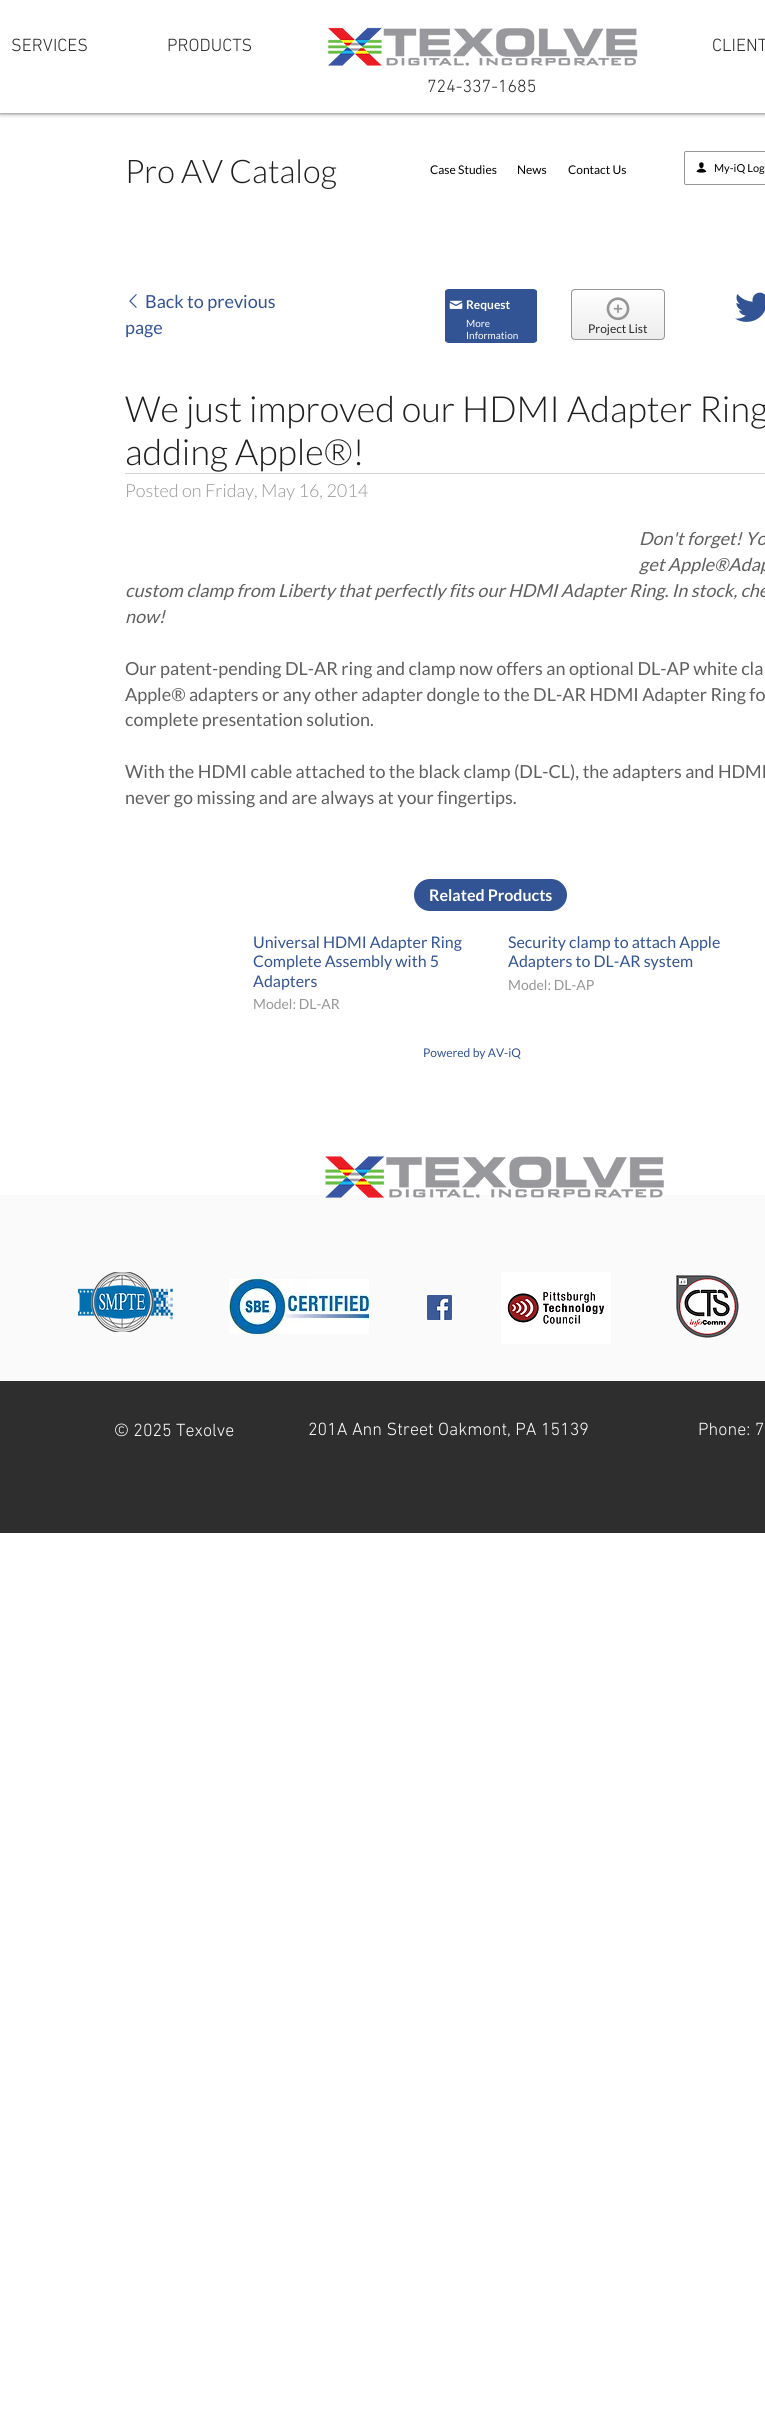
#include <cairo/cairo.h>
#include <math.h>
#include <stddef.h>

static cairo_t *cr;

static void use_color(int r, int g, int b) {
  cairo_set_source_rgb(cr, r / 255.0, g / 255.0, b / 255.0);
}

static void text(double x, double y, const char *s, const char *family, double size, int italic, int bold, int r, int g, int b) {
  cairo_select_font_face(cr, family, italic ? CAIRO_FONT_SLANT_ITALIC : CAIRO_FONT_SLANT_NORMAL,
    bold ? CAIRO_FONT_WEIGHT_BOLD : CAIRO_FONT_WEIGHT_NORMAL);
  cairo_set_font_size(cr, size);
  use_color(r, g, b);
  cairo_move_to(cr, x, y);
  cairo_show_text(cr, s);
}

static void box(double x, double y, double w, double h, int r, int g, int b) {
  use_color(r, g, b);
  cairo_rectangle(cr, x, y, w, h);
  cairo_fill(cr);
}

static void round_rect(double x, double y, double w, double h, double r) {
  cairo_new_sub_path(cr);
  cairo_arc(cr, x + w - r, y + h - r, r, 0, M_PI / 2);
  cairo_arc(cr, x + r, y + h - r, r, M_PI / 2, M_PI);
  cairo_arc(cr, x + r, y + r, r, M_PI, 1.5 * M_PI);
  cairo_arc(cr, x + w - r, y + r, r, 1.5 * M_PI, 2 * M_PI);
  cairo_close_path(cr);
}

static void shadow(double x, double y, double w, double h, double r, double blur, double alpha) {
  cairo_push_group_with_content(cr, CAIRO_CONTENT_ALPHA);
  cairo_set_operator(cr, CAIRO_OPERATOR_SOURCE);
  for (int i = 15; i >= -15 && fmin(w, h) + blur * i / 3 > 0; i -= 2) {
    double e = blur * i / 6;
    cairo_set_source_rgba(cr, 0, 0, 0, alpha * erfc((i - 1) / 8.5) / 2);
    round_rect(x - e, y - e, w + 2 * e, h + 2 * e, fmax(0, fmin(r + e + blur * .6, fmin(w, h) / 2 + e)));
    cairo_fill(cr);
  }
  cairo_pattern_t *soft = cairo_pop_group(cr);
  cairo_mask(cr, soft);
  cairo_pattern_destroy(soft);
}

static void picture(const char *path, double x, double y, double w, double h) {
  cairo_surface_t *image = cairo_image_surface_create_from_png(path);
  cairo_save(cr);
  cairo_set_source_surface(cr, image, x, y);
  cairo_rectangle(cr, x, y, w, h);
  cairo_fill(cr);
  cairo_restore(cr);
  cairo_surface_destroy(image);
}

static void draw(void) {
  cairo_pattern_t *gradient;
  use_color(255, 255, 255);
  cairo_paint(cr);
  cairo_save(cr);
  cairo_rectangle(cr, 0, 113, 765, 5);
  cairo_clip(cr);
  use_color(0, 0, 0);
  shadow(0, 0, 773, 113, 0, 2.5, 0.7);
  cairo_restore(cr);
  picture("img_01.png", 328, 27, 310, 39);
  round_rect(684.5, 151.5, 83, 33, 1.5);
  use_color(150, 150, 150);
  cairo_set_line_width(cr, 1);
  cairo_stroke(cr);
  picture("img_02.png", 696, 162, 11, 11);
  picture("img_03.png", 129, 294, 8, 14);
  use_color(50, 83, 148);
  round_rect(444, 289, 94, 54, 5);
  cairo_fill(cr);
  box(537, 291, 1, 50, 255, 255, 255);
  box(444, 291, 1, 50, 255, 255, 255);
  picture("img_04.png", 449, 300, 14, 9);
  cairo_save(cr);
  round_rect(571, 289, 94, 51, 4);
  cairo_clip(cr);
  gradient = cairo_pattern_create_linear(618, 290, 618, 339);
  cairo_pattern_add_color_stop_rgba(gradient, 0, 1, 1, 1, 1);
  cairo_pattern_add_color_stop_rgba(gradient, 1, 0.925, 0.925, 0.925, 1);
  cairo_set_source(cr, gradient);
  cairo_pattern_destroy(gradient);
  cairo_rectangle(cr, 571, 290, 94, 49);
  cairo_fill(cr);
  cairo_restore(cr);
  round_rect(571.5, 289.5, 93, 50, 3.5);
  use_color(150, 150, 150);
  cairo_stroke(cr);
  picture("img_05.png", 606, 297, 24, 24);
  picture("img_06.png", 735, 292, 30, 30);
  box(125, 473, 640, 1, 210, 210, 210);
  use_color(50, 83, 148);
  round_rect(414, 879, 153, 32, 16);
  cairo_fill(cr);
  box(0, 1381, 765, 152, 47, 46, 46);
  box(0, 1195, 765, 186, 250, 250, 250);
  picture("img_07.png", 325, 1156, 339, 42);
  picture("img_08.png", 78, 1272, 95, 60);
  picture("img_09.png", 229, 1279, 140, 55);
  picture("img_10.png", 427, 1295, 25, 25);
  picture("img_11.png", 501, 1272, 110, 72);
  picture("img_12.png", 675, 1274, 64, 64);
  text(11, 51, "SERVICES", "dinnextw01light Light", 18, 0, 0, 42, 42, 42);
  text(167, 51, "PRODUCTS", "dinnextw01light Light", 18, 0, 0, 42, 42, 42);
  text(712, 51, "CLIENT", "dinnextw01light Light", 18, 0, 0, 42, 42, 42);
  text(427, 92, "724-337-1685", "dinnextw01light Light", 18, 0, 0, 42, 42, 42);
  text(125, 183, "Pro AV Catalog", "Lato Light", 32.5, 0, 0, 30, 30, 30);
  text(430, 174, "Case Studies", "Lato", 12, 0, 0, 0, 0, 0);
  text(517, 174, "News", "Lato", 12, 0, 0, 0, 0, 0);
  text(568, 174, "Contact Us", "Lato", 12, 0, 0, 0, 0, 0);
  text(714, 172, "My-iQ Log", "Lato", 11, 0, 0, 0, 0, 0);
  text(145, 308, "Back to previous", "Lato", 18, 0, 0, 50, 83, 148);
  text(125, 334, "page", "Lato", 18, 0, 0, 50, 83, 148);
  text(466, 309, "Request", "Lato", 12, 0, 1, 255, 255, 255);
  text(466, 327, "More", "Lato", 10, 0, 0, 255, 255, 255);
  text(466, 339, "Information", "Lato", 10, 0, 0, 255, 255, 255);
  text(588, 333, "Project List", "Lato", 12, 0, 0, 42, 42, 42);
  text(125, 422, "We just improved our HDMI Adapter Ring", "Lato Light", 36, 0, 0, 30, 30, 30);
  text(125, 465, "adding Apple®!", "Lato Light", 36, 0, 0, 30, 30, 30);
  text(125, 497, "Posted on Friday, May 16, 2014", "Lato Light", 18, 0, 0, 150, 150, 150);
  text(639, 545, "Don't forget! Yo", "Lato", 18, 1, 0, 96, 94, 94);
  text(639, 571, "get Apple®Adap", "Lato", 18, 1, 0, 96, 94, 94);
  text(125, 597, "custom clamp from Liberty that perfectly fits our HDMI Adapter Ring. In stock, che", "Lato", 18, 1, 0, 96, 94, 94);
  text(125, 623, "now!", "Lato", 18, 1, 0, 96, 94, 94);
  text(125, 675, "Our patent-pending DL-AR ring and clamp now offers an optional DL-AP white cla", "Lato", 18, 0, 0, 96, 94, 94);
  text(125, 701, "Apple® adapters or any other adapter dongle to the DL-AR HDMI Adapter Ring fo", "Lato", 18, 0, 0, 96, 94, 94);
  text(125, 726, "complete presentation solution.", "Lato", 18, 0, 0, 96, 94, 94);
  text(125, 778, "With the HDMI cable attached to the black clamp (DL-CL), the adapters and HDMI", "Lato", 18, 0, 0, 96, 94, 94);
  text(125, 804, "never go missing and are always at your fingertips.", "Lato", 18, 0, 0, 96, 94, 94);
  text(429, 901, "Related Products", "Lato", 16, 0, 1, 255, 255, 255);
  text(253, 948, "Universal HDMI Adapter Ring", "Lato", 16, 0, 0, 50, 83, 148);
  text(253, 967, "Complete Assembly with 5", "Lato", 16, 0, 0, 50, 83, 148);
  text(253, 987, "Adapters", "Lato", 16, 0, 0, 50, 83, 148);
  text(253, 1009, "Model: DL-AR", "Lato", 14, 0, 0, 150, 150, 150);
  text(508, 948, "Security clamp to attach Apple", "Lato", 16, 0, 0, 50, 83, 148);
  text(508, 967, "Adapters to DL-AR system", "Lato", 16, 0, 0, 50, 83, 148);
  text(508, 990, "Model: DL-AP", "Lato", 14, 0, 0, 150, 150, 150);
  text(423, 1057, "Powered by AV-iQ", "Lato", 12, 0, 0, 50, 83, 148);
  text(114, 1436, "© 2025 Texolve", "dinnextw01light Light", 18, 0, 0, 255, 255, 255);
  text(308, 1435, "201A Ann Street Oakmont, PA 15139", "dinnextw01light Light", 18, 0, 0, 255, 255, 255);
  text(698, 1435, "Phone: 7", "dinnextw01light Light", 18, 0, 0, 255, 255, 255);
}

int main(void) {
  cairo_surface_t *surface = cairo_image_surface_create(CAIRO_FORMAT_RGB24, 765, 2421);
  cr = cairo_create(surface);
  cairo_font_options_t *options = cairo_font_options_create();
  cairo_font_options_set_hint_metrics(options, CAIRO_HINT_METRICS_OFF);
  cairo_font_options_set_hint_style(options, CAIRO_HINT_STYLE_NONE);
  cairo_set_font_options(cr, options);
  cairo_set_miter_limit(cr, 4);
  draw();
  cairo_surface_write_to_png(surface, "out.png");
  cairo_font_options_destroy(options);
  cairo_destroy(cr);
  cairo_surface_destroy(surface);
  return 0;
}
